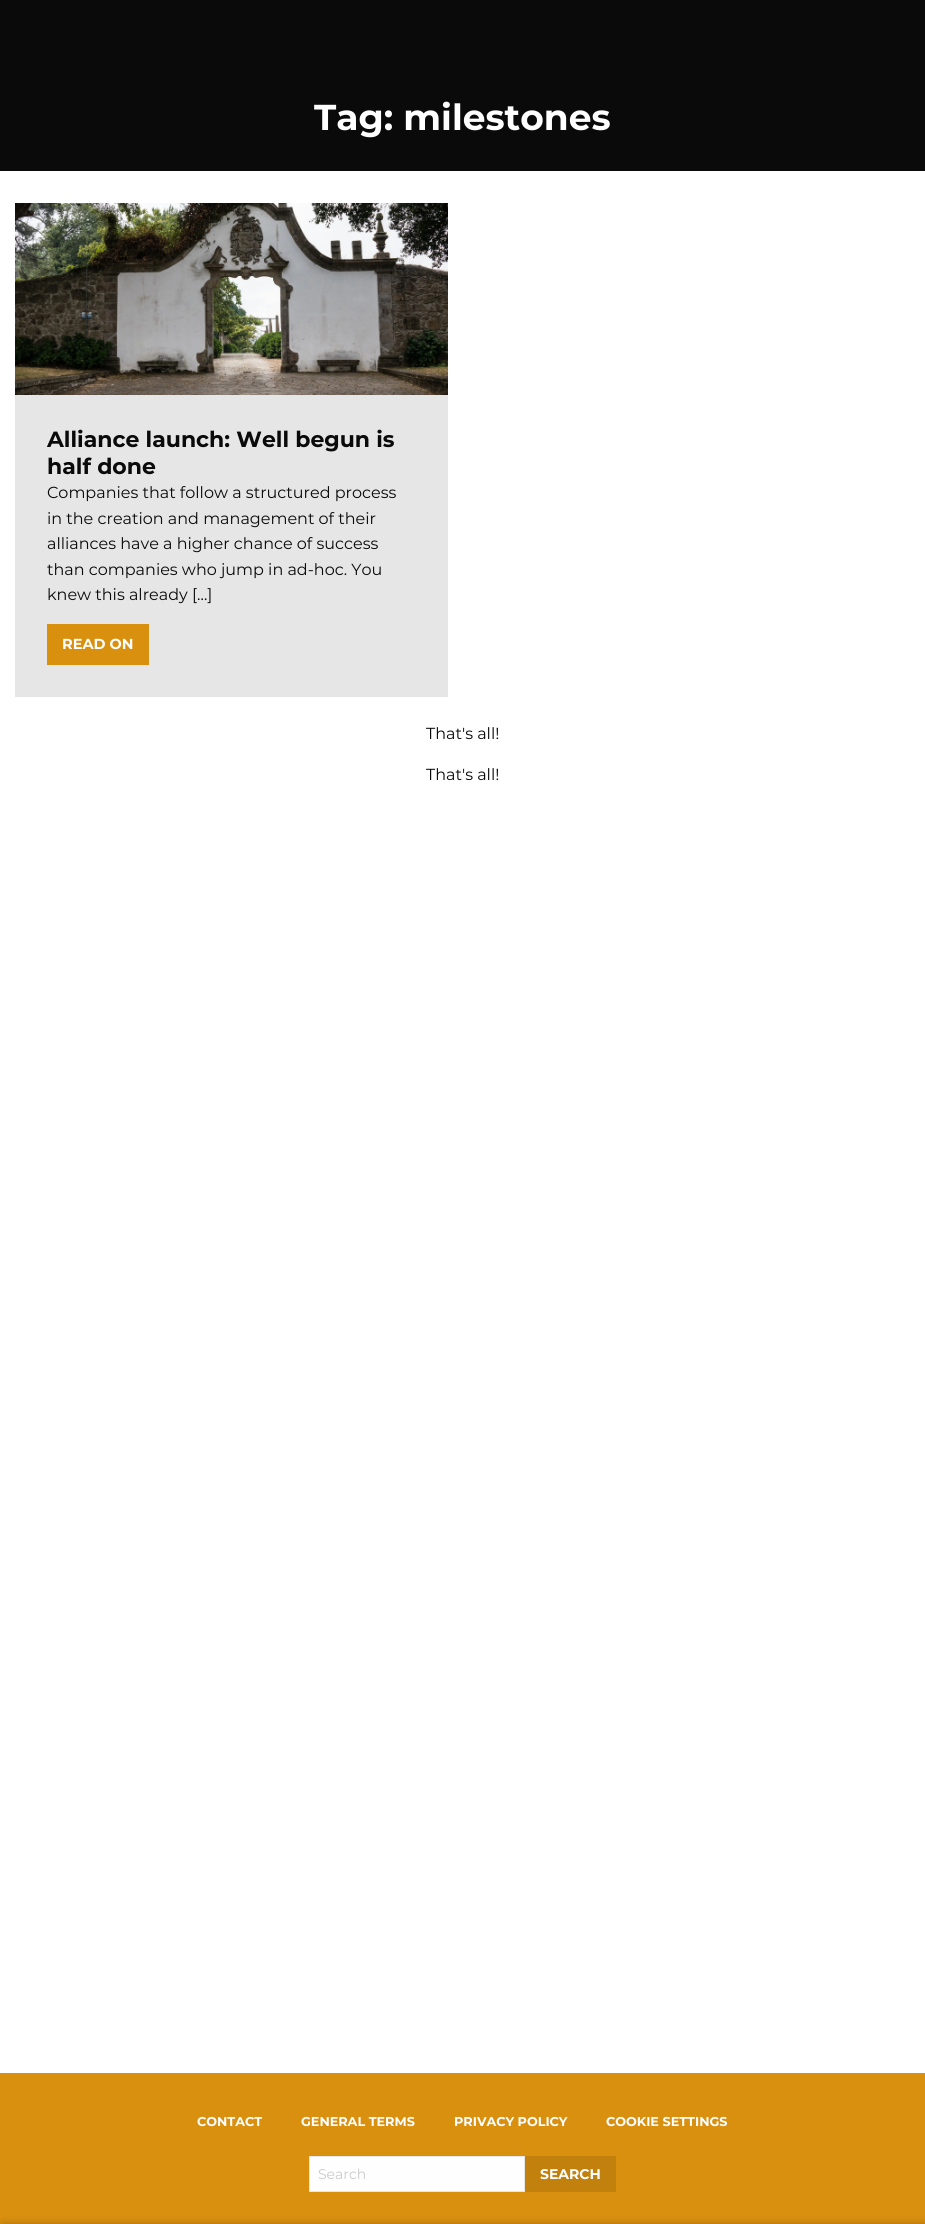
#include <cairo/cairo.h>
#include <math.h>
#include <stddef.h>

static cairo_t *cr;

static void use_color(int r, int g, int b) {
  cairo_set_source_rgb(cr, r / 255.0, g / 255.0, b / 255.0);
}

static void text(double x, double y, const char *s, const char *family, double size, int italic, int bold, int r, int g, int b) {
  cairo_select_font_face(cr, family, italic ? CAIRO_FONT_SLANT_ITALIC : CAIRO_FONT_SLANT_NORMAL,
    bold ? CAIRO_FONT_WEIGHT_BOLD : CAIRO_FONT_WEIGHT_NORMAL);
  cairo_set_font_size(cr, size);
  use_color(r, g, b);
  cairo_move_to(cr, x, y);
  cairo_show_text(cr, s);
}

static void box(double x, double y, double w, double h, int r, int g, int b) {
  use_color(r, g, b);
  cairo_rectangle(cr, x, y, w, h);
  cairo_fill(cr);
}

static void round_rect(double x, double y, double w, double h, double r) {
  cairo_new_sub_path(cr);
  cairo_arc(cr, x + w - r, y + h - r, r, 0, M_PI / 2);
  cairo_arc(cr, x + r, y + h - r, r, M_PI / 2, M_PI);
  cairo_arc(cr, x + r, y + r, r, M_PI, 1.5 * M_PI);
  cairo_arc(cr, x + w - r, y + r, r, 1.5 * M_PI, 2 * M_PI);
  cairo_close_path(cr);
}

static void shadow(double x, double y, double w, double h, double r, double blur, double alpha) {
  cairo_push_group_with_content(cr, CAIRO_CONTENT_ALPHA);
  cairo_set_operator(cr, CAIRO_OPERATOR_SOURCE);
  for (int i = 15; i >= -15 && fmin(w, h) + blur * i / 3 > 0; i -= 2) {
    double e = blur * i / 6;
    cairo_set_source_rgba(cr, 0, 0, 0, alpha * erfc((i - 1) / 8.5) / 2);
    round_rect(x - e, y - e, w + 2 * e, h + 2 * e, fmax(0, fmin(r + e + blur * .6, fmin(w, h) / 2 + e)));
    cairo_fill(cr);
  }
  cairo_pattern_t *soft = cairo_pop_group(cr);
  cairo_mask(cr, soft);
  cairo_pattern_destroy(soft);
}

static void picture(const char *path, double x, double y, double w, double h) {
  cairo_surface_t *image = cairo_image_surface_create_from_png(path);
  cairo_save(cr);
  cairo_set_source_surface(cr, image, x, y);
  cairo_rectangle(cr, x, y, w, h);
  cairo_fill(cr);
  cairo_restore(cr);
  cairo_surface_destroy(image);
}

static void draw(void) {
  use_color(255, 255, 255);
  cairo_paint(cr);
  box(0, 0, 925, 171, 10, 10, 10);
  box(15, 395, 433, 302, 230, 230, 230);
  picture("img_01.png", 15, 203, 433, 192);
  box(47, 624, 102, 41, 218, 144, 15);
  box(0, 2073, 925, 151, 218, 144, 15);
  use_color(254, 254, 254);
  cairo_rectangle(cr, 309.5, 2156.5, 215, 35);
  cairo_fill_preserve(cr);
  use_color(230, 230, 230);
  cairo_set_line_width(cr, 1);
  cairo_stroke(cr);
  box(525, 2156, 91, 36, 194, 128, 13);
  use_color(10, 10, 10);
  shadow(3, 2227, 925, 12, 0, 5, 0.5);
  text(314, 130, "Tag: milestones", "Montserrat", 36, 0, 1, 254, 254, 254);
  text(47, 447, "Alliance launch: Well begun is", "Montserrat", 22, 0, 1, 10, 10, 10);
  text(47, 474, "half done", "Montserrat", 22, 0, 1, 10, 10, 10);
  text(47, 498, "Companies that follow a structured process", "Montserrat", 16, 0, 0, 10, 10, 10);
  text(47, 524, "in the creation and management of their", "Montserrat", 16, 0, 0, 10, 10, 10);
  text(47, 549, "alliances have a higher chance of success", "Montserrat", 16, 0, 0, 10, 10, 10);
  text(47, 575, "than companies who jump in ad-hoc. You", "Montserrat", 16, 0, 0, 10, 10, 10);
  text(47, 600, "knew this already […]", "Montserrat", 16, 0, 0, 10, 10, 10);
  text(62, 649, "READ ON", "Montserrat", 14.5, 0, 1, 254, 254, 254);
  text(426, 739, "That's all!", "Montserrat", 16, 0, 0, 10, 10, 10);
  text(426, 780, "That's all!", "Montserrat", 16, 0, 0, 10, 10, 10);
  text(197, 2126, "CONTACT", "Montserrat", 12.75, 0, 1, 254, 254, 254);
  text(301, 2126, "GENERAL TERMS", "Montserrat", 12.75, 0, 1, 254, 254, 254);
  text(454, 2126, "PRIVACY POLICY", "Montserrat", 12.75, 0, 1, 254, 254, 254);
  text(606, 2126, "COOKIE SETTINGS", "Montserrat", 12.75, 0, 1, 254, 254, 254);
  text(318, 2179, "Search", "Montserrat", 14, 0, 0, 202, 202, 202);
  text(540, 2179, "SEARCH", "Montserrat", 14, 0, 1, 254, 254, 254);
}

int main(void) {
  cairo_surface_t *surface = cairo_image_surface_create(CAIRO_FORMAT_RGB24, 925, 2224);
  cr = cairo_create(surface);
  cairo_font_options_t *options = cairo_font_options_create();
  cairo_font_options_set_hint_metrics(options, CAIRO_HINT_METRICS_OFF);
  cairo_font_options_set_hint_style(options, CAIRO_HINT_STYLE_NONE);
  cairo_set_font_options(cr, options);
  cairo_set_miter_limit(cr, 4);
  draw();
  cairo_surface_write_to_png(surface, "out.png");
  cairo_font_options_destroy(options);
  cairo_destroy(cr);
  cairo_surface_destroy(surface);
  return 0;
}
